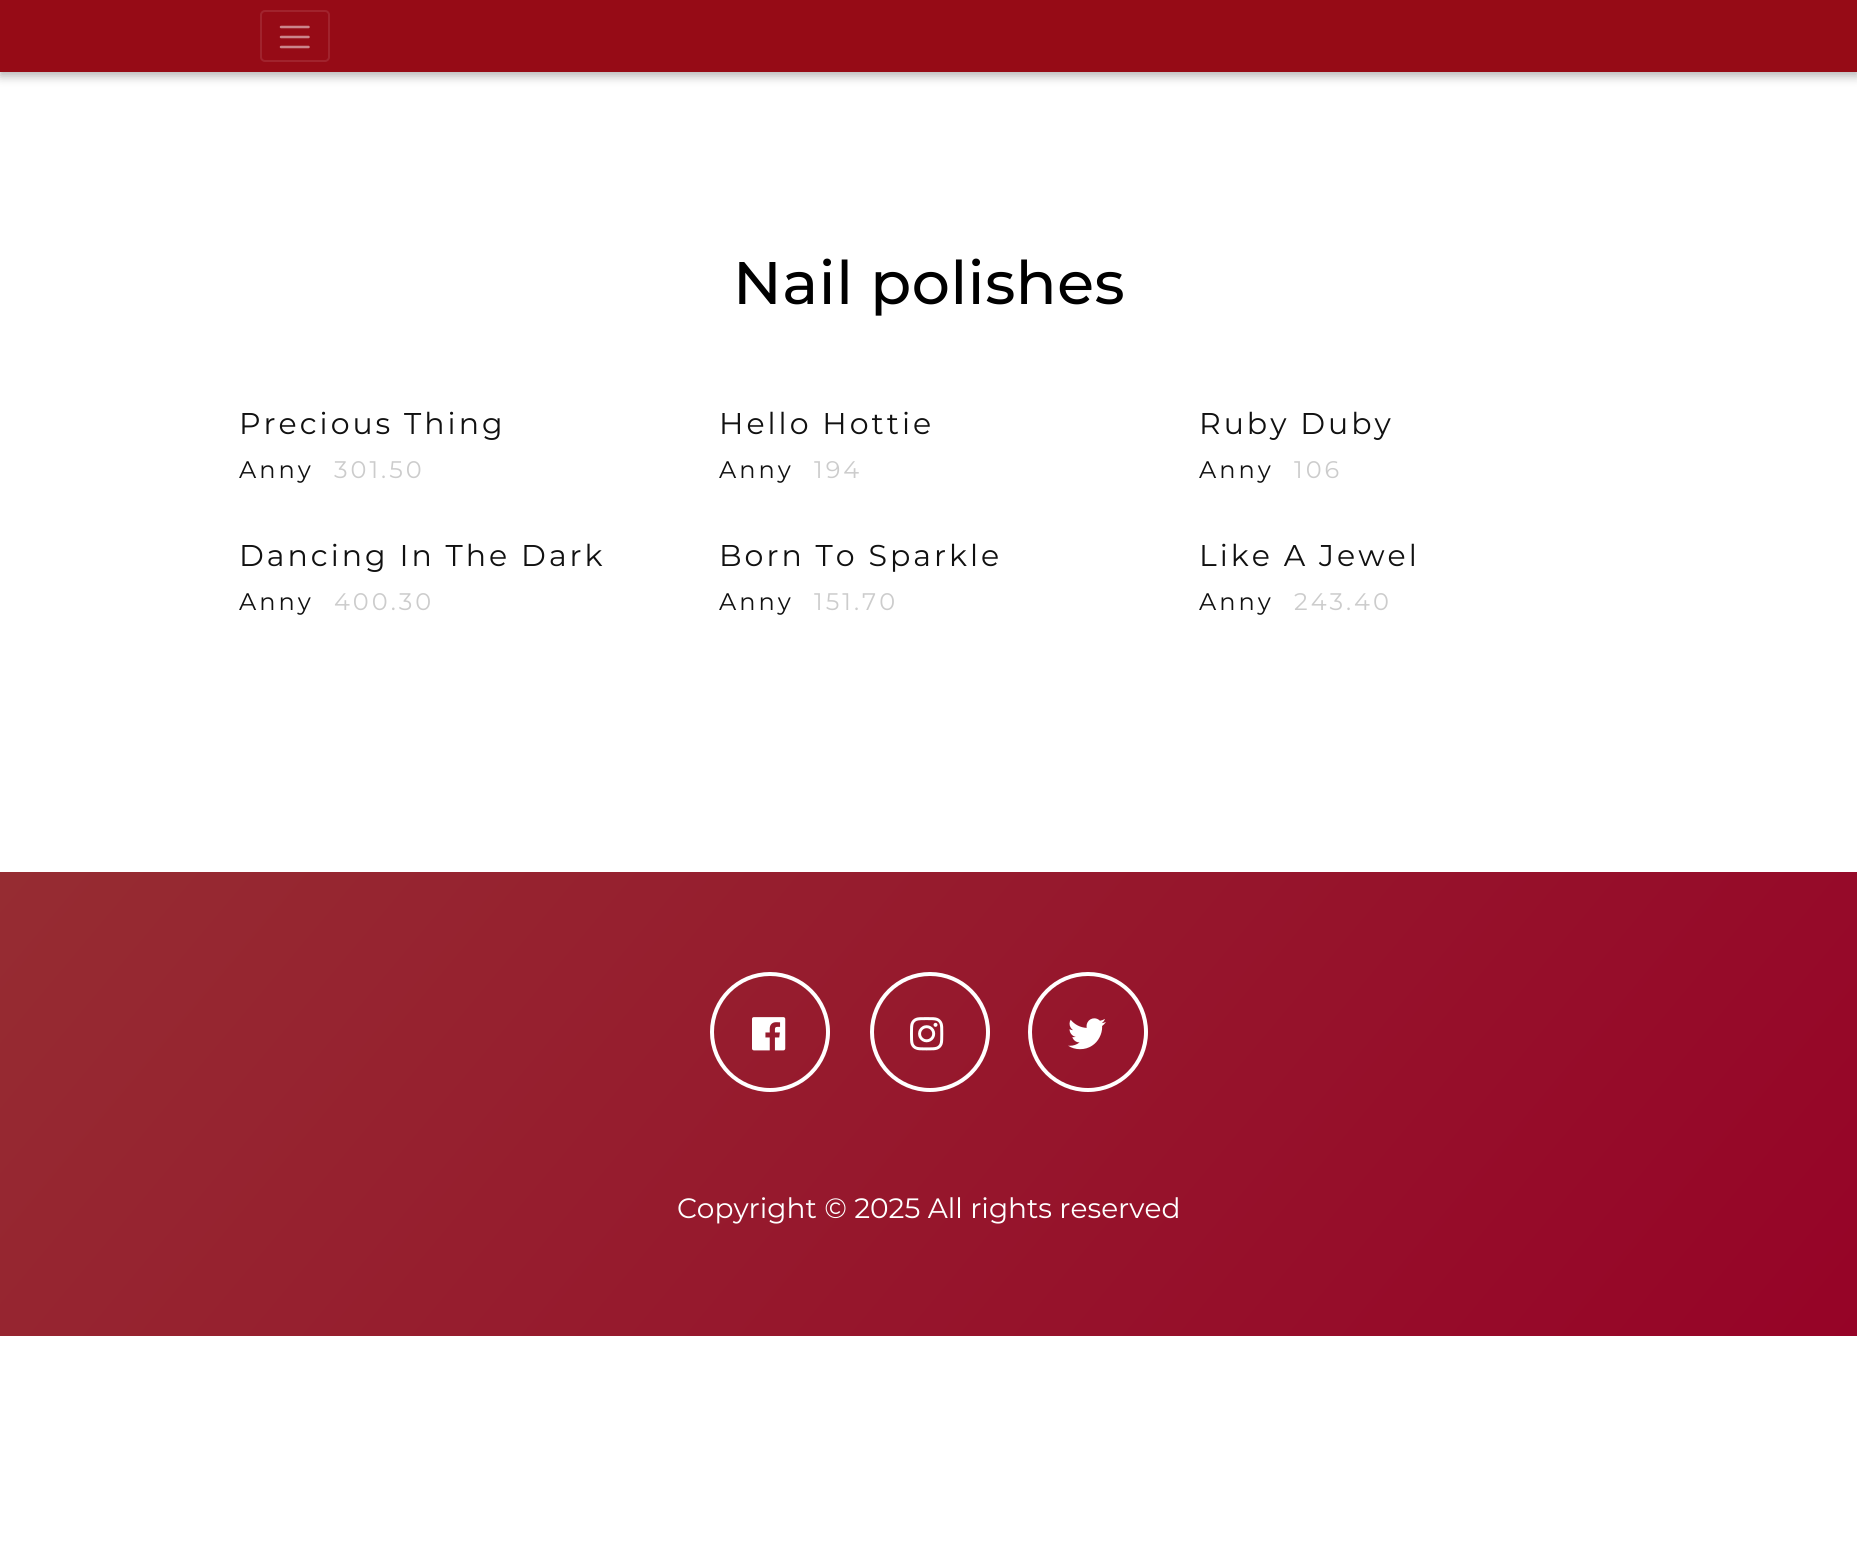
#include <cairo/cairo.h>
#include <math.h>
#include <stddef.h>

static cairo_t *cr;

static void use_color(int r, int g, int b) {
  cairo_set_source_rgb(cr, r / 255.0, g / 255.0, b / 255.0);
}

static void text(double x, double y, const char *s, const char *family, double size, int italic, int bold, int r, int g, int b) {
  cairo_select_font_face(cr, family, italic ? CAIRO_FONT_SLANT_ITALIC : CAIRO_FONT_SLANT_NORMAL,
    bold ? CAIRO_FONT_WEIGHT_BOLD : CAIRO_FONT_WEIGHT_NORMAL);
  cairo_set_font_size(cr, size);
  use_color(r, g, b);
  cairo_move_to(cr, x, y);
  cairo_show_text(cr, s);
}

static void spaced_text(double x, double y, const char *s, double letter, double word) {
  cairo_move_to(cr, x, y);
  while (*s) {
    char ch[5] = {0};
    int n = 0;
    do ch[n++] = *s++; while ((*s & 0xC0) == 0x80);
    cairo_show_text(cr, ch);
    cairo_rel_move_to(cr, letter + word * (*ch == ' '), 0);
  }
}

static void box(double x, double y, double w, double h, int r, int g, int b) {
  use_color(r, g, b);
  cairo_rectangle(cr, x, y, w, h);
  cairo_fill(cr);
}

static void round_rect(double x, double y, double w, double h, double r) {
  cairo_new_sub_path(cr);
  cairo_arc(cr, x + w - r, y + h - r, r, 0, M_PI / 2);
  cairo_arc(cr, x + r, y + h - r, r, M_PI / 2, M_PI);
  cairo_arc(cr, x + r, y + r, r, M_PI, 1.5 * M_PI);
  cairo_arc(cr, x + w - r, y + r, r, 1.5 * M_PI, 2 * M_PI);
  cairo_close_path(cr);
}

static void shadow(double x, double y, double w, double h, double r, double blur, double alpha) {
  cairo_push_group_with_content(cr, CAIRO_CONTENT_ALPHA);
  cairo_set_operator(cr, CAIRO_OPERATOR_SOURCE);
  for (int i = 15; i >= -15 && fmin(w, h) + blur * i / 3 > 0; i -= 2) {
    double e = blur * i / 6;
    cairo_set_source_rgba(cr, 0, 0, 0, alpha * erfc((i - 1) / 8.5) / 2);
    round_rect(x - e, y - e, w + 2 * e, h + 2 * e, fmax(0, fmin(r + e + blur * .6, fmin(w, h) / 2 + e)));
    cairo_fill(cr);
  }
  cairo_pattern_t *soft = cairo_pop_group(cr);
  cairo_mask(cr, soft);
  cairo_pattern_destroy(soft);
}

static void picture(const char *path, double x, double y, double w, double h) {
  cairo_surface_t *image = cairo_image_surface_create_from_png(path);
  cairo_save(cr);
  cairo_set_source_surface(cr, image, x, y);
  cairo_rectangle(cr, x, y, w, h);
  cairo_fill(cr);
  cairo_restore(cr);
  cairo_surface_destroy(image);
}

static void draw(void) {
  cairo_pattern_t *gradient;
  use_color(255, 255, 255);
  cairo_paint(cr);
  use_color(0, 0, 0);
  shadow(0, 4, 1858, 72, 0, 5, 0.3);
  box(0, 0, 1857, 72, 150, 11, 22);
  round_rect(261, 11, 68, 50, 4);
  use_color(161, 35, 45);
  cairo_stroke(cr);
  cairo_new_path(cr);
  cairo_move_to(cr, 281, 27);
  cairo_line_to(cr, 308.5, 27);
  cairo_move_to(cr, 281, 37);
  cairo_line_to(cr, 308.5, 37);
  cairo_move_to(cr, 281, 47);
  cairo_line_to(cr, 308.5, 47);
  use_color(203, 133, 139);
  cairo_set_line_width(cr, 2.5);
  cairo_set_line_cap(cr, CAIRO_LINE_CAP_ROUND);
  cairo_stroke(cr);
  gradient = cairo_pattern_create_linear(270, 551, 1588, 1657);
  cairo_pattern_add_color_stop_rgba(gradient, 0, 0.588, 0.173, 0.196, 1);
  cairo_pattern_add_color_stop_rgba(gradient, 1, 0.588, 0.012, 0.153, 1);
  cairo_set_source(cr, gradient);
  cairo_pattern_destroy(gradient);
  cairo_rectangle(cr, 0, 872, 1857, 464);
  cairo_fill(cr);
  cairo_arc(cr, 770, 1032, 58, 0, 2 * M_PI);
  use_color(255, 255, 255);
  cairo_set_line_width(cr, 4);
  cairo_set_line_cap(cr, CAIRO_LINE_CAP_BUTT);
  cairo_stroke(cr);
  picture("img_01.png", 752, 1017, 34, 34);
  cairo_arc(cr, 930, 1032, 58, 0, 2 * M_PI);
  cairo_stroke(cr);
  picture("img_02.png", 910, 1017, 34, 34);
  cairo_arc(cr, 1088, 1032, 58, 0, 2 * M_PI);
  cairo_stroke(cr);
  picture("img_03.png", 1068, 1018, 38, 32);
  cairo_select_font_face(cr, "Montserrat Medium", CAIRO_FONT_SLANT_NORMAL, CAIRO_FONT_WEIGHT_NORMAL);
  cairo_set_font_size(cr, 60);
  use_color(0, 0, 0);
  spaced_text(733, 304, "Nail polishes", 0.6, 0);
  cairo_select_font_face(cr, "Montserrat", CAIRO_FONT_SLANT_NORMAL, CAIRO_FONT_WEIGHT_NORMAL);
  cairo_set_font_size(cr, 30);
  use_color(17, 17, 17);
  spaced_text(239, 434, "Precious Thing", 3, 0);
  cairo_set_font_size(cr, 24);
  spaced_text(239, 478, "Anny", 3, 0);
  use_color(204, 204, 204);
  spaced_text(334, 478, "301.50", 3, 0);
  cairo_set_font_size(cr, 30);
  use_color(17, 17, 17);
  spaced_text(719, 434, "Hello Hottie", 3, 0);
  cairo_set_font_size(cr, 24);
  spaced_text(719, 478, "Anny", 3, 0);
  use_color(204, 204, 204);
  spaced_text(814, 478, "194", 3, 0);
  cairo_set_font_size(cr, 30);
  use_color(17, 17, 17);
  spaced_text(1199, 434, "Ruby Duby", 3, 0);
  cairo_set_font_size(cr, 24);
  spaced_text(1199, 478, "Anny", 3, 0);
  use_color(204, 204, 204);
  spaced_text(1294, 478, "106", 3, 0);
  cairo_set_font_size(cr, 30);
  use_color(17, 17, 17);
  spaced_text(239, 566, "Dancing In The Dark", 3, 0);
  cairo_set_font_size(cr, 24);
  spaced_text(239, 610, "Anny", 3, 0);
  use_color(204, 204, 204);
  spaced_text(334, 610, "400.30", 3, 0);
  cairo_set_font_size(cr, 30);
  use_color(17, 17, 17);
  spaced_text(719, 566, "Born To Sparkle", 3, 0);
  cairo_set_font_size(cr, 24);
  spaced_text(719, 610, "Anny", 3, 0);
  use_color(204, 204, 204);
  spaced_text(814, 610, "151.70", 3, 0);
  cairo_set_font_size(cr, 30);
  use_color(17, 17, 17);
  spaced_text(1199, 566, "Like A Jewel", 3, 0);
  cairo_set_font_size(cr, 24);
  spaced_text(1199, 610, "Anny", 3, 0);
  use_color(204, 204, 204);
  spaced_text(1294, 610, "243.40", 3, 0);
  text(677, 1218, "Copyright © 2025 All rights reserved", "Montserrat", 28, 0, 0, 255, 255, 255);
}

int main(void) {
  cairo_surface_t *surface = cairo_image_surface_create(CAIRO_FORMAT_RGB24, 1857, 1543);
  cr = cairo_create(surface);
  cairo_font_options_t *options = cairo_font_options_create();
  cairo_font_options_set_hint_metrics(options, CAIRO_HINT_METRICS_OFF);
  cairo_font_options_set_hint_style(options, CAIRO_HINT_STYLE_NONE);
  cairo_set_font_options(cr, options);
  cairo_set_miter_limit(cr, 4);
  draw();
  cairo_surface_write_to_png(surface, "out.png");
  cairo_font_options_destroy(options);
  cairo_destroy(cr);
  cairo_surface_destroy(surface);
  return 0;
}
